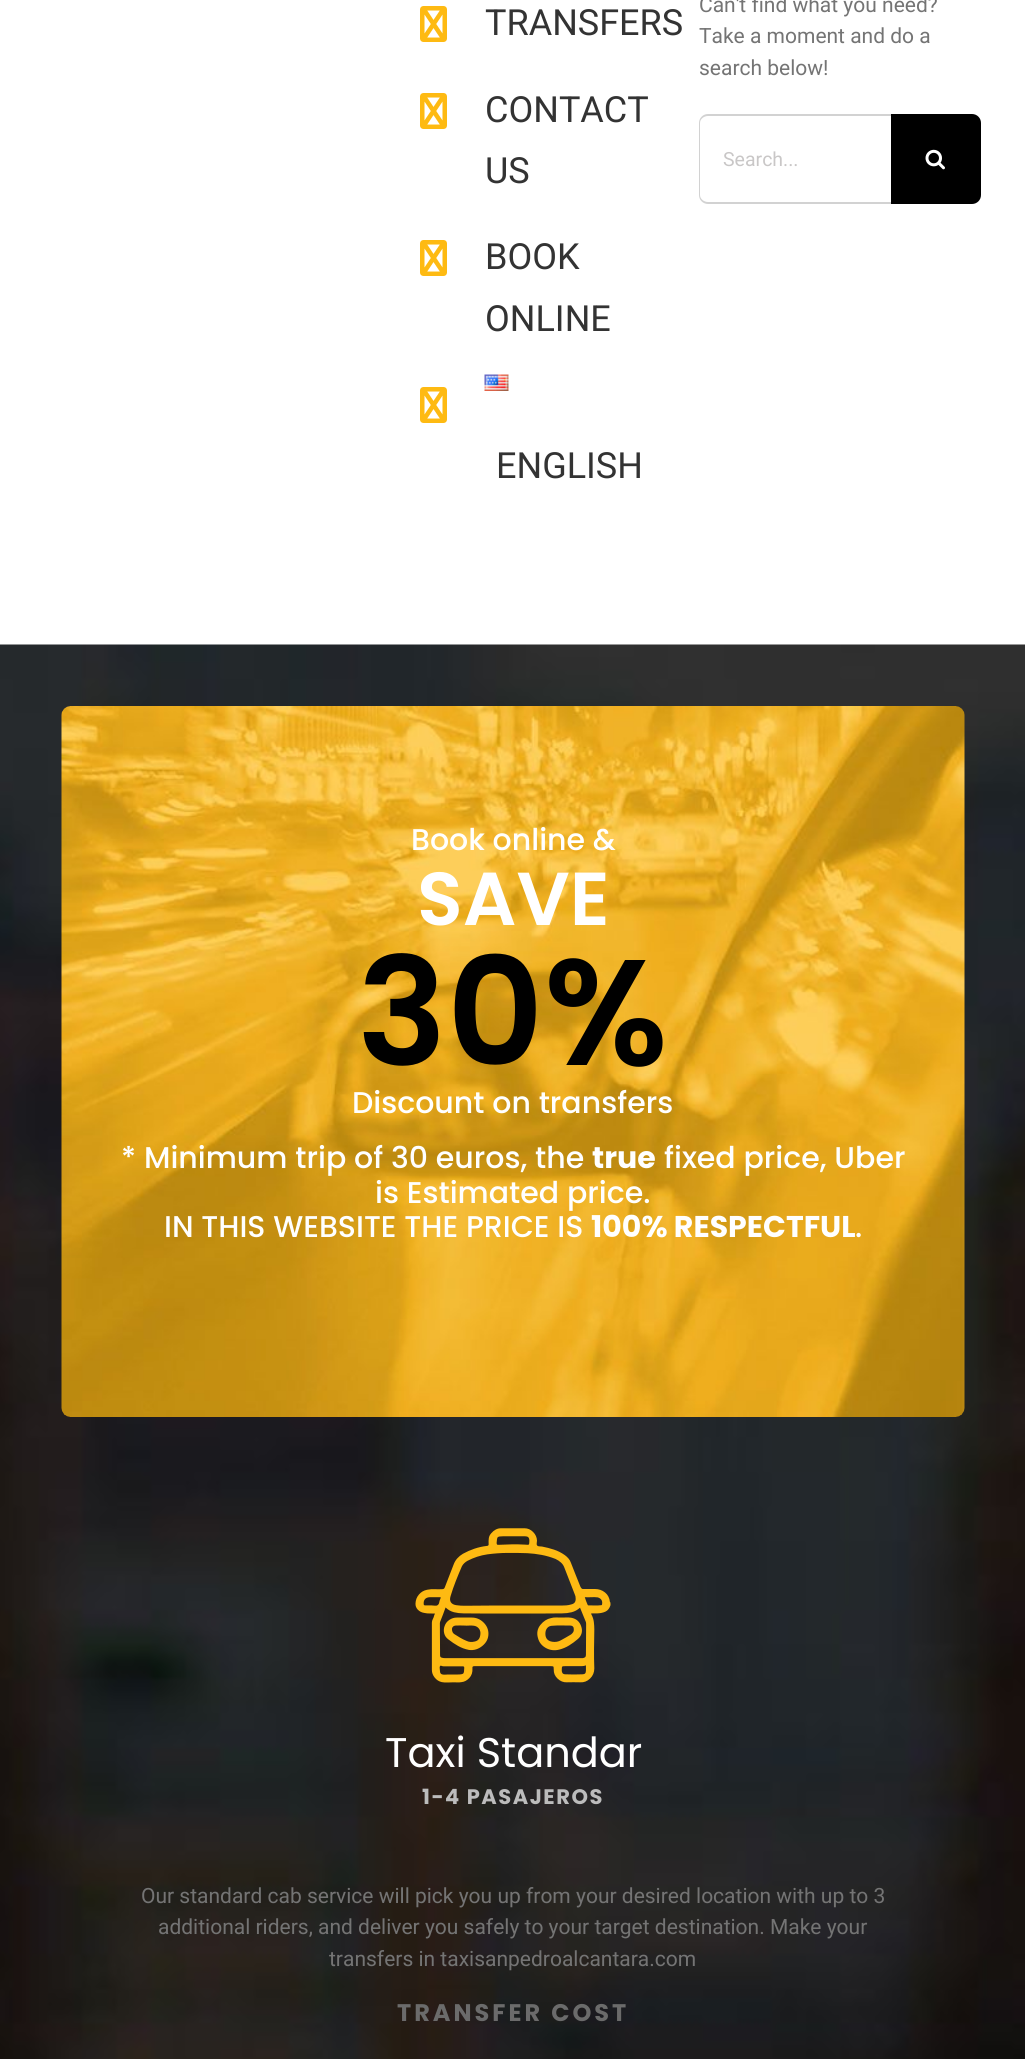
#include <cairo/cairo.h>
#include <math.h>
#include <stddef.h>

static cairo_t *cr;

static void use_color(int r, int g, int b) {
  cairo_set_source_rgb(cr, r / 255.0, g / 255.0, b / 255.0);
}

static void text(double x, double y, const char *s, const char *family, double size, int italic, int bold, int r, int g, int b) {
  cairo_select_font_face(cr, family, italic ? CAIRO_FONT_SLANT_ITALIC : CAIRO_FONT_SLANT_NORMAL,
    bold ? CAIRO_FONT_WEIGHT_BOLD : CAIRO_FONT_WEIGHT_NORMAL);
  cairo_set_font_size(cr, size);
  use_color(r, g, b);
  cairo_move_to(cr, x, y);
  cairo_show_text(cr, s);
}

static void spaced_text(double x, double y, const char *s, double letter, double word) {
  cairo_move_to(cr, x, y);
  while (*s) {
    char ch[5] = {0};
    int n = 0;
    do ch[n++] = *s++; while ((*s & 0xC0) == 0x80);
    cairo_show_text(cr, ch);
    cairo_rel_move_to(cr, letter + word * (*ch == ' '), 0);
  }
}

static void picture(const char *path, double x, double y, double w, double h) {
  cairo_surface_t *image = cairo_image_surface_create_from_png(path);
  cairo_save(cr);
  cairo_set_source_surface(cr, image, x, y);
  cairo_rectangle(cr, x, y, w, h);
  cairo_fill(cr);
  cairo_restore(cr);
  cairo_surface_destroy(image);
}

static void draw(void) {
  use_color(255, 255, 255);
  cairo_paint(cr);
  picture("img_01.png", 420, 6, 27, 36);
  picture("img_01.png", 420, 93, 27, 36);
  picture("img_01.png", 420, 240, 27, 36);
  picture("img_01.png", 420, 387, 27, 36);
  picture("img_02.png", 484, 374, 25, 17);
  use_color(210, 210, 210);
  cairo_set_fill_rule(cr, CAIRO_FILL_RULE_EVEN_ODD);
  cairo_new_path(cr);
  cairo_move_to(cr, 708, 114);
  cairo_line_to(cr, 891, 114);
  cairo_line_to(cr, 891, 204);
  cairo_line_to(cr, 708, 204);
  cairo_curve_to(cr, 703, 204, 699, 200, 699, 195);
  cairo_line_to(cr, 699, 123);
  cairo_curve_to(cr, 699, 118, 703, 114, 708, 114);
  cairo_close_path(cr);
  cairo_move_to(cr, 708, 116);
  cairo_line_to(cr, 891, 116);
  cairo_line_to(cr, 891, 202);
  cairo_line_to(cr, 708, 202);
  cairo_curve_to(cr, 704, 202, 700, 199, 700, 195);
  cairo_line_to(cr, 700, 123);
  cairo_curve_to(cr, 700, 119, 704, 116, 708, 116);
  cairo_close_path(cr);
  cairo_fill(cr);
  use_color(0, 0, 0);
  cairo_new_path(cr);
  cairo_move_to(cr, 891, 114);
  cairo_line_to(cr, 972, 114);
  cairo_curve_to(cr, 977, 114, 981, 118, 981, 123);
  cairo_line_to(cr, 981, 195);
  cairo_curve_to(cr, 981, 200, 977, 204, 972, 204);
  cairo_line_to(cr, 891, 204);
  cairo_close_path(cr);
  cairo_fill(cr);
  picture("img_03.png", 925, 149, 20, 21);
  picture("img_04.png", 0, 644, 1025, 1415);
  picture("img_05.png", 61, 706, 904, 711);
  picture("img_06.png", 415, 1528, 196, 155);
  text(485, 35, "TRANSFERS", "Roboto", 36, 0, 0, 51, 51, 51);
  text(485, 122, "CONTACT", "Roboto", 36, 0, 0, 51, 51, 51);
  text(485, 183, "US", "Roboto", 36, 0, 0, 51, 51, 51);
  text(485, 269, "BOOK", "Roboto", 36, 0, 0, 51, 51, 51);
  text(485, 331, "ONLINE", "Roboto", 36, 0, 0, 51, 51, 51);
  text(496, 478, "ENGLISH", "Roboto", 36, 0, 0, 51, 51, 51);
  text(699, 12, "Can't find what you need?", "Roboto", 21, 0, 0, 116, 116, 116);
  text(699, 43, "Take a moment and do a", "Roboto", 21, 0, 0, 116, 116, 116);
  text(699, 75, "search below!", "Roboto", 21, 0, 0, 116, 116, 116);
  text(723, 166, "Search...", "Roboto", 19.5, 0, 0, 201, 199, 199);
  text(411, 850, "Book online &", "Poppins Medium", 30, 0, 0, 255, 255, 255);
  text(417, 925, "SAVE", "Poppins SemiBold", 75, 0, 0, 255, 255, 255);
  text(357, 1065, "30%", "Poppins SemiBold", 150, 0, 0, 0, 0, 0);
  text(352, 1113, "Discount on transfers", "Poppins Medium", 30, 0, 0, 255, 255, 255);
  text(121, 1168, "* Minimum trip of 30 euros, the", "Poppins Medium", 30, 0, 0, 255, 255, 255);
  text(592, 1168, "true", "Poppins", 30, 0, 1, 255, 255, 255);
  text(664, 1168, "fixed price, Uber", "Poppins Medium", 30, 0, 0, 255, 255, 255);
  text(375, 1203, "is Estimated price.", "Poppins Medium", 30, 0, 0, 255, 255, 255);
  text(164, 1237, "IN THIS WEBSITE THE PRICE IS", "Poppins Medium", 30, 0, 0, 255, 255, 255);
  text(591, 1237, "100% RESPECTFUL", "Poppins", 30, 0, 1, 255, 255, 255);
  text(855, 1237, ".", "Poppins Medium", 30, 0, 0, 255, 255, 255);
  text(385, 1767, "Taxi Standar", "Poppins", 41.5, 0, 0, 255, 255, 255);
  cairo_select_font_face(cr, "Poppins", CAIRO_FONT_SLANT_NORMAL, CAIRO_FONT_WEIGHT_BOLD);
  cairo_set_font_size(cr, 21);
  use_color(188, 188, 188);
  spaced_text(422, 1804, "1-4 PASAJEROS", 1.5, 0);
  text(141, 1903, "Our standard cab service will pick you up from your desired location with up to 3", "Roboto", 21, 0, 0, 116, 116, 116);
  text(158, 1934, "additional riders, and deliver you safely to your target destination. Make your", "Roboto", 21, 0, 0, 116, 116, 116);
  text(329, 1966, "transfers in taxisanpedroalcantara.com", "Roboto", 21, 0, 0, 116, 116, 116);
  cairo_select_font_face(cr, "Poppins", CAIRO_FONT_SLANT_NORMAL, CAIRO_FONT_WEIGHT_BOLD);
  cairo_set_font_size(cr, 24);
  use_color(107, 107, 107);
  spaced_text(397, 2021, "TRANSFER COST", 3, 0);
}

int main(void) {
  cairo_surface_t *surface = cairo_image_surface_create(CAIRO_FORMAT_RGB24, 1025, 2059);
  cr = cairo_create(surface);
  cairo_font_options_t *options = cairo_font_options_create();
  cairo_font_options_set_hint_metrics(options, CAIRO_HINT_METRICS_OFF);
  cairo_font_options_set_hint_style(options, CAIRO_HINT_STYLE_NONE);
  cairo_set_font_options(cr, options);
  cairo_set_miter_limit(cr, 4);
  draw();
  cairo_surface_write_to_png(surface, "out.png");
  cairo_font_options_destroy(options);
  cairo_destroy(cr);
  cairo_surface_destroy(surface);
  return 0;
}
